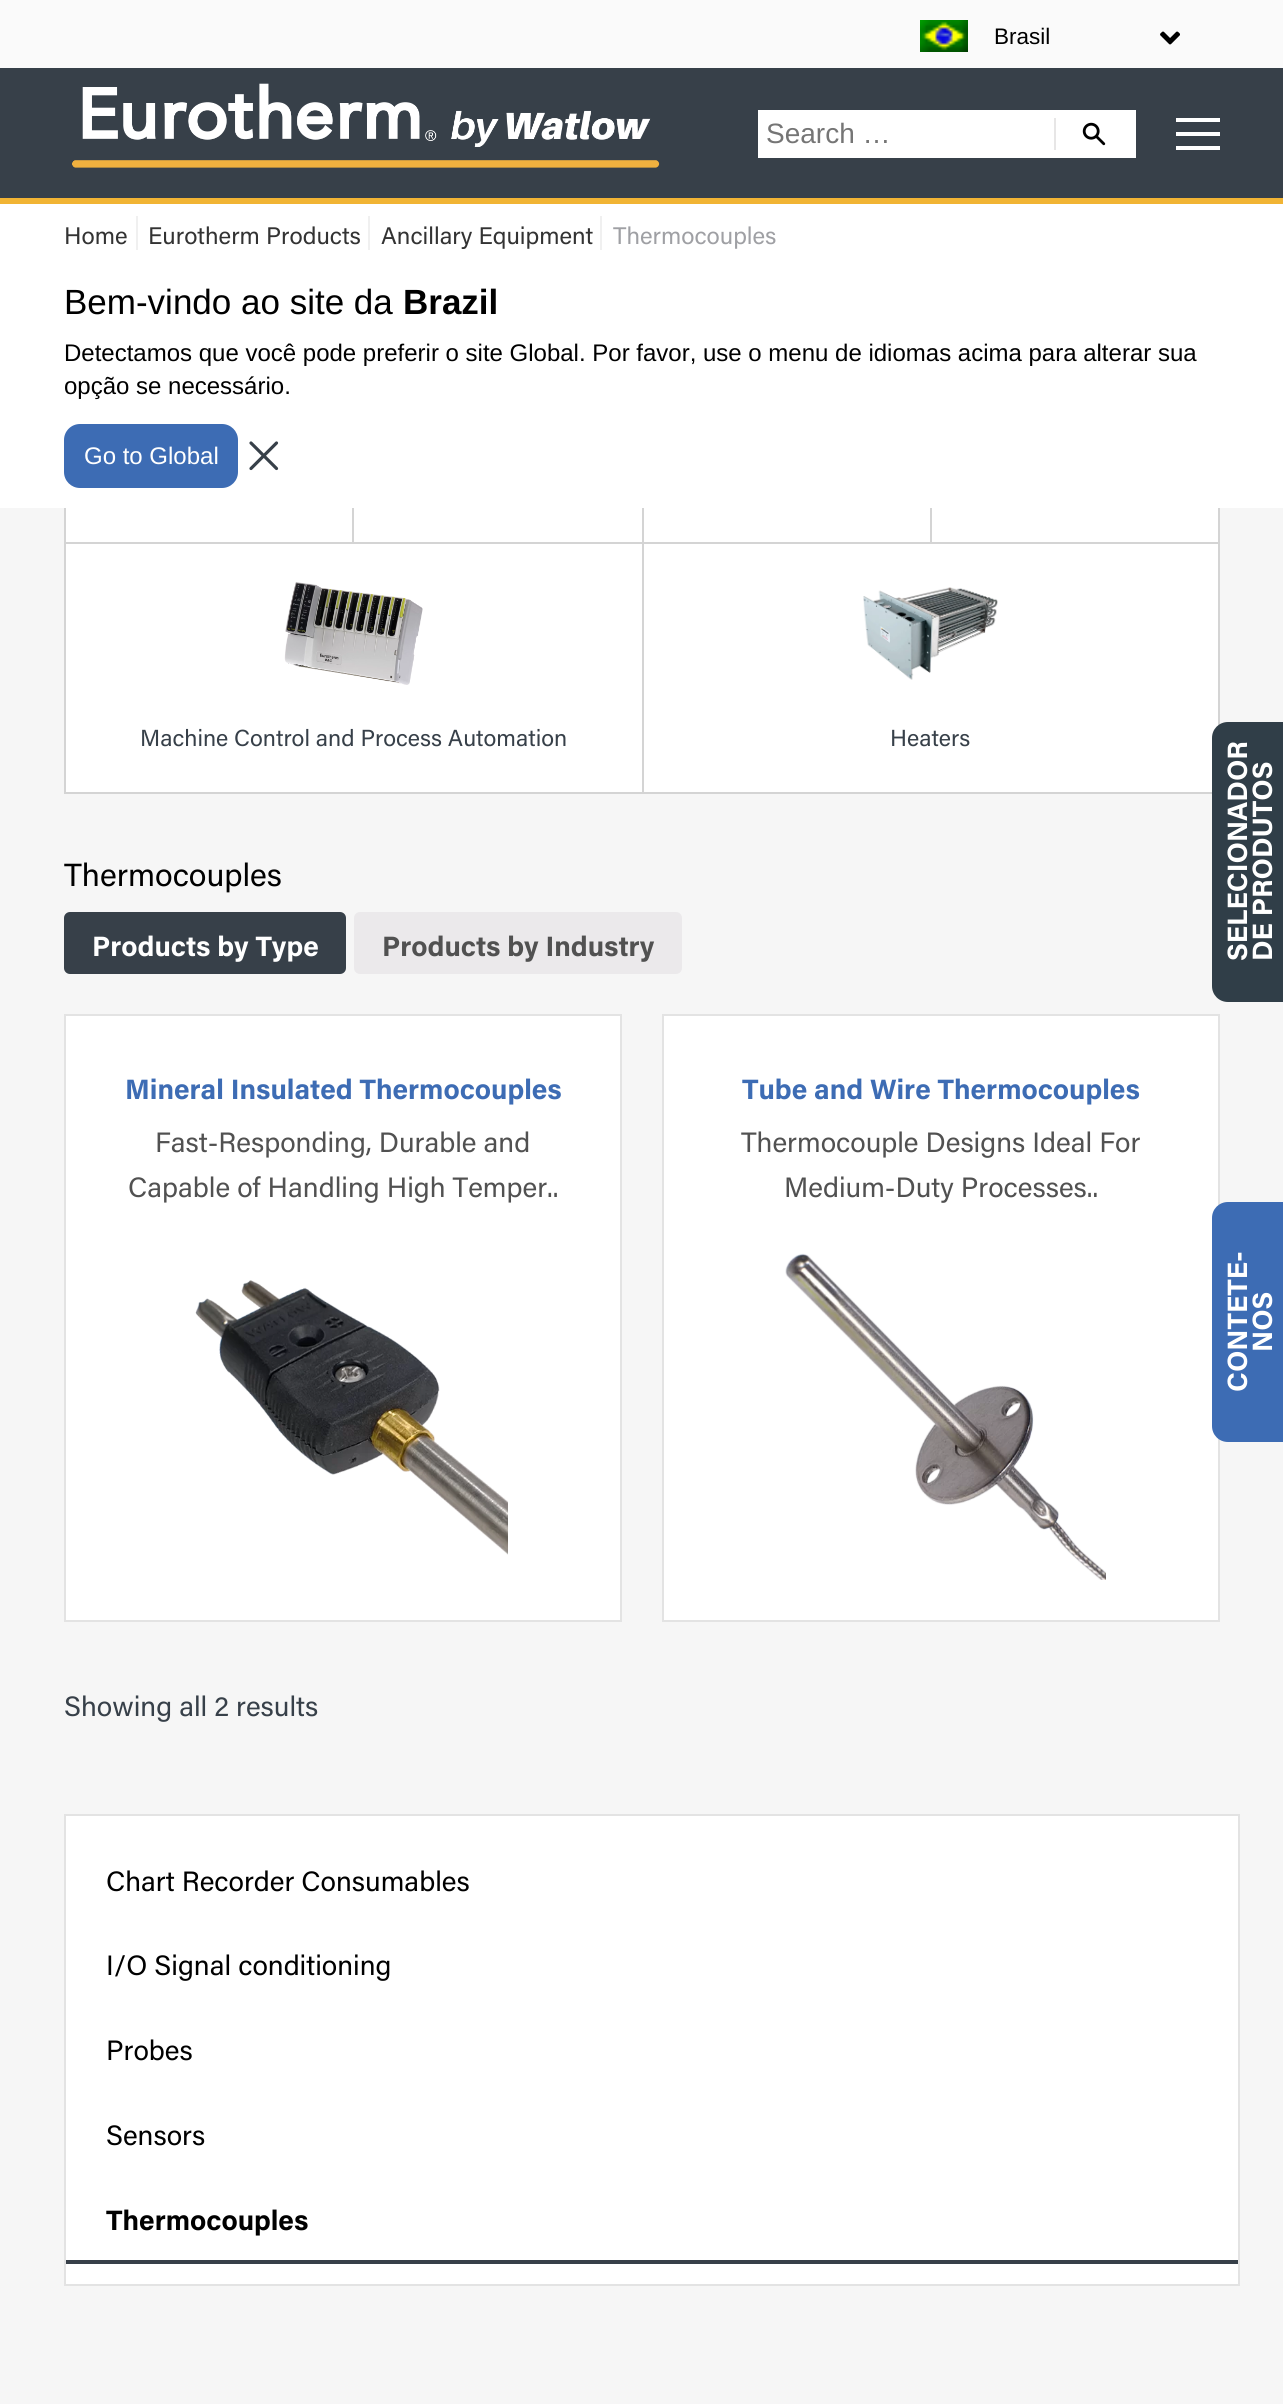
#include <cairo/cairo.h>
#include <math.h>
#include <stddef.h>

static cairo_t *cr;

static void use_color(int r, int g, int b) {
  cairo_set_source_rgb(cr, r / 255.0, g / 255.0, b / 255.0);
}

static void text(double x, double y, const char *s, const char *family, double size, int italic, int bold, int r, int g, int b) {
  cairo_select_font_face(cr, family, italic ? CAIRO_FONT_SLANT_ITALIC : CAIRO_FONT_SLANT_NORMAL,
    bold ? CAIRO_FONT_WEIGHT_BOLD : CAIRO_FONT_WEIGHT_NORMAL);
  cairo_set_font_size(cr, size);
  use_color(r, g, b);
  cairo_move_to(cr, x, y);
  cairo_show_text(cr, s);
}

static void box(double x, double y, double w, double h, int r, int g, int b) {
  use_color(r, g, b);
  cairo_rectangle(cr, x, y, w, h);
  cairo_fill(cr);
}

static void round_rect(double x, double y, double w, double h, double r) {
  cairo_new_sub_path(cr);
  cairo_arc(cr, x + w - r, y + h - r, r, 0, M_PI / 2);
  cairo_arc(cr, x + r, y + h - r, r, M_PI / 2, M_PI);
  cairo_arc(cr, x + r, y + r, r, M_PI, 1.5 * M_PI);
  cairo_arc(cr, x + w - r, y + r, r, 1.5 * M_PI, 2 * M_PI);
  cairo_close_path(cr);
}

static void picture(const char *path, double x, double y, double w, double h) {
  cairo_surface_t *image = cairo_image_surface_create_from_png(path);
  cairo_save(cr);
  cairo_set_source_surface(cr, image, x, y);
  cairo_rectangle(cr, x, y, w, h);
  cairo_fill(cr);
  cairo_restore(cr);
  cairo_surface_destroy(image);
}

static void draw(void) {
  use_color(246, 246, 246);
  cairo_paint(cr);
  box(0, 68, 1283, 130, 55, 64, 73);
  box(0, 198, 1283, 6, 241, 180, 52);
  box(0, 0, 1283, 68, 250, 250, 250);
  picture("img_01.png", 920, 20, 48, 32);
  picture("img_02.png", 1160, 31, 20, 14);
  picture("img_03.png", 72, 83, 588, 85);
  box(758, 110, 378, 48, 255, 255, 255);
  box(1054, 118, 2, 32, 231, 230, 230);
  picture("img_04.png", 1082, 122, 24, 24);
  box(1176, 118, 44, 4, 255, 255, 255);
  box(1176, 132, 44, 4, 255, 255, 255);
  box(1176, 146, 44, 4, 255, 255, 255);
  box(0, 204, 1283, 46, 255, 255, 255);
  box(136, 216, 2, 36, 240, 240, 240);
  box(368, 216, 2, 36, 240, 240, 240);
  box(600, 216, 2, 36, 240, 240, 240);
  box(0, 250, 1283, 258, 255, 255, 255);
  use_color(61, 108, 180);
  round_rect(64, 424, 174, 64, 16);
  cairo_fill(cr);
  cairo_new_path(cr);
  cairo_move_to(cr, 251, 468.5);
  cairo_line_to(cr, 276.5, 443);
  cairo_move_to(cr, 251, 443);
  cairo_line_to(cr, 276.5, 468.5);
  use_color(55, 64, 73);
  cairo_set_line_width(cr, 3.2);
  cairo_set_line_cap(cr, CAIRO_LINE_CAP_ROUND);
  cairo_set_line_join(cr, CAIRO_LINE_JOIN_ROUND);
  cairo_stroke(cr);
  box(66, 508, 1152, 284, 255, 255, 255);
  box(64, 508, 2, 286, 212, 212, 212);
  box(352, 508, 2, 36, 212, 212, 212);
  box(66, 542, 288, 2, 212, 212, 212);
  box(642, 508, 2, 286, 212, 212, 212);
  box(354, 542, 290, 2, 212, 212, 212);
  box(930, 508, 2, 36, 212, 212, 212);
  box(644, 542, 288, 2, 212, 212, 212);
  box(1218, 508, 2, 218, 212, 212, 212);
  box(932, 542, 288, 2, 212, 212, 212);
  box(66, 792, 1154, 2, 212, 212, 212);
  picture("img_05.png", 284, 582, 139, 103);
  picture("img_06.png", 863, 587, 135, 93);
  use_color(55, 64, 73);
  round_rect(64, 912, 282, 62, 6);
  cairo_fill(cr);
  use_color(235, 233, 235);
  round_rect(354, 912, 328, 62, 6);
  cairo_fill(cr);
  use_color(255, 255, 255);
  cairo_rectangle(cr, 65, 1015, 556, 606);
  cairo_fill_preserve(cr);
  use_color(227, 227, 227);
  cairo_set_line_width(cr, 2);
  cairo_set_line_cap(cr, CAIRO_LINE_CAP_BUTT);
  cairo_set_line_join(cr, CAIRO_LINE_JOIN_MITER);
  cairo_stroke(cr);
  picture("img_07.png", 195, 1280, 313, 275);
  use_color(255, 255, 255);
  cairo_rectangle(cr, 663, 1015, 556, 606);
  cairo_fill_preserve(cr);
  use_color(227, 227, 227);
  cairo_stroke(cr);
  picture("img_08.png", 785, 1253, 321, 327);
  use_color(255, 255, 255);
  cairo_rectangle(cr, 65, 1815, 1174, 470);
  cairo_fill_preserve(cr);
  use_color(227, 227, 227);
  cairo_stroke(cr);
  box(66, 2260, 1172, 4, 55, 64, 73);
  use_color(48, 62, 72);
  cairo_new_path(cr);
  cairo_move_to(cr, 1228, 722);
  cairo_line_to(cr, 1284, 722);
  cairo_line_to(cr, 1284, 1002);
  cairo_line_to(cr, 1228, 1002);
  cairo_curve_to(cr, 1219, 1002, 1212, 995, 1212, 986);
  cairo_line_to(cr, 1212, 738);
  cairo_curve_to(cr, 1212, 729, 1219, 722, 1228, 722);
  cairo_close_path(cr);
  cairo_fill(cr);
  use_color(61, 108, 180);
  cairo_new_path(cr);
  cairo_move_to(cr, 1228, 1202);
  cairo_line_to(cr, 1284, 1202);
  cairo_line_to(cr, 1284, 1442);
  cairo_line_to(cr, 1228, 1442);
  cairo_curve_to(cr, 1219, 1442, 1212, 1435, 1212, 1426);
  cairo_line_to(cr, 1212, 1218);
  cairo_curve_to(cr, 1212, 1209, 1219, 1202, 1228, 1202);
  cairo_close_path(cr);
  cairo_fill(cr);
  text(994, 44, "Brasil", "Liberation Sans", 22.5, 0, 0, 0, 0, 0);
  text(766, 143, "Search …", "Liberation Sans", 28, 0, 0, 117, 117, 117);
  text(64, 314, "Bem-vindo ao site da", "Liberation Sans", 35, 0, 0, 0, 0, 0);
  text(403, 314, "Brazil", "Liberation Sans", 35, 0, 1, 0, 0, 0);
  text(64, 361, "Detectamos que você pode preferir o site Global. Por favor, use o menu de idiomas acima para alterar sua", "Liberation Sans", 24, 0, 0, 0, 0, 0);
  text(64, 394, "opção se necessário.", "Liberation Sans", 24, 0, 0, 0, 0, 0);
  text(84, 464, "Go to Global", "Liberation Sans", 24, 0, 0, 255, 255, 255);
  text(64, 244, "Home", "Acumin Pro", 24, 0, 0, 51, 51, 51);
  text(148, 244, "Eurotherm Products", "Acumin Pro", 24, 0, 0, 51, 51, 51);
  text(381, 244, "Ancillary Equipment", "Acumin Pro", 24, 0, 0, 51, 51, 51);
  text(613, 244, "Thermocouples", "Acumin Pro", 24, 0, 0, 159, 160, 164);
  text(140, 746, "Machine Control and Process Automation", "Acumin Pro", 23.25, 0, 0, 55, 64, 73);
  text(890, 746, "Heaters", "Acumin Pro", 23.25, 0, 0, 55, 64, 73);
  text(64, 886, "Thermocouples", "Acumin Pro", 32, 0, 0, 0, 0, 0);
  text(92, 956, "Products by Type", "Acumin Pro", 28, 0, 1, 255, 255, 255);
  text(382, 956, "Products by Industry", "Acumin Pro", 28, 0, 1, 81, 81, 81);
  text(125, 1099, "Mineral Insulated Thermocouples", "Acumin Pro", 28, 0, 1, 61, 108, 180);
  text(155, 1152, "Fast-Responding, Durable and", "Acumin Pro", 28, 0, 0, 81, 81, 81);
  text(128, 1197, "Capable of Handling High Temper..", "Acumin Pro", 28, 0, 0, 81, 81, 81);
  text(742, 1099, "Tube and Wire Thermocouples", "Acumin Pro", 28, 0, 1, 61, 108, 180);
  text(741, 1152, "Thermocouple Designs Ideal For", "Acumin Pro", 28, 0, 0, 81, 81, 81);
  text(784, 1197, "Medium-Duty Processes..", "Acumin Pro", 28, 0, 0, 81, 81, 81);
  text(64, 1716, "Showing all 2 results", "Acumin Pro", 28, 0, 0, 55, 64, 73);
  text(106, 1891, "Chart Recorder Consumables", "Acumin Pro", 28, 0, 0, 0, 0, 0);
  text(106, 1975, "I/O Signal conditioning", "Acumin Pro", 28, 0, 0, 0, 0, 0);
  text(106, 2060, "Probes", "Acumin Pro", 28, 0, 0, 0, 0, 0);
  text(106, 2145, "Sensors", "Acumin Pro", 28, 0, 0, 0, 0, 0);
  text(106, 2230, "Thermocouples", "Acumin Pro", 28, 0, 1, 0, 0, 0);
  cairo_save(cr);
  cairo_translate(cr, 1247, 961);
  cairo_rotate(cr, -90 * M_PI / 180);
  text(0, 0, "SELECIONADOR", "Acumin Pro", 28, 0, 1, 255, 255, 255);
  cairo_restore(cr);
  cairo_save(cr);
  cairo_translate(cr, 1272, 961);
  cairo_rotate(cr, -90 * M_PI / 180);
  text(0, 0, "DE PRODUTOS", "Acumin Pro", 28, 0, 1, 255, 255, 255);
  cairo_restore(cr);
  cairo_save(cr);
  cairo_translate(cr, 1247, 1392);
  cairo_rotate(cr, -90 * M_PI / 180);
  text(0, 0, "CONTETE-", "Acumin Pro", 28, 0, 1, 255, 255, 255);
  cairo_restore(cr);
  cairo_save(cr);
  cairo_translate(cr, 1272, 1352);
  cairo_rotate(cr, -90 * M_PI / 180);
  text(0, 0, "NOS", "Acumin Pro", 28, 0, 1, 255, 255, 255);
  cairo_restore(cr);
}

int main(void) {
  cairo_surface_t *surface = cairo_image_surface_create(CAIRO_FORMAT_RGB24, 1283, 2404);
  cr = cairo_create(surface);
  cairo_font_options_t *options = cairo_font_options_create();
  cairo_font_options_set_hint_metrics(options, CAIRO_HINT_METRICS_OFF);
  cairo_font_options_set_hint_style(options, CAIRO_HINT_STYLE_NONE);
  cairo_set_font_options(cr, options);
  cairo_set_miter_limit(cr, 4);
  draw();
  cairo_surface_write_to_png(surface, "out.png");
  cairo_font_options_destroy(options);
  cairo_destroy(cr);
  cairo_surface_destroy(surface);
  return 0;
}
